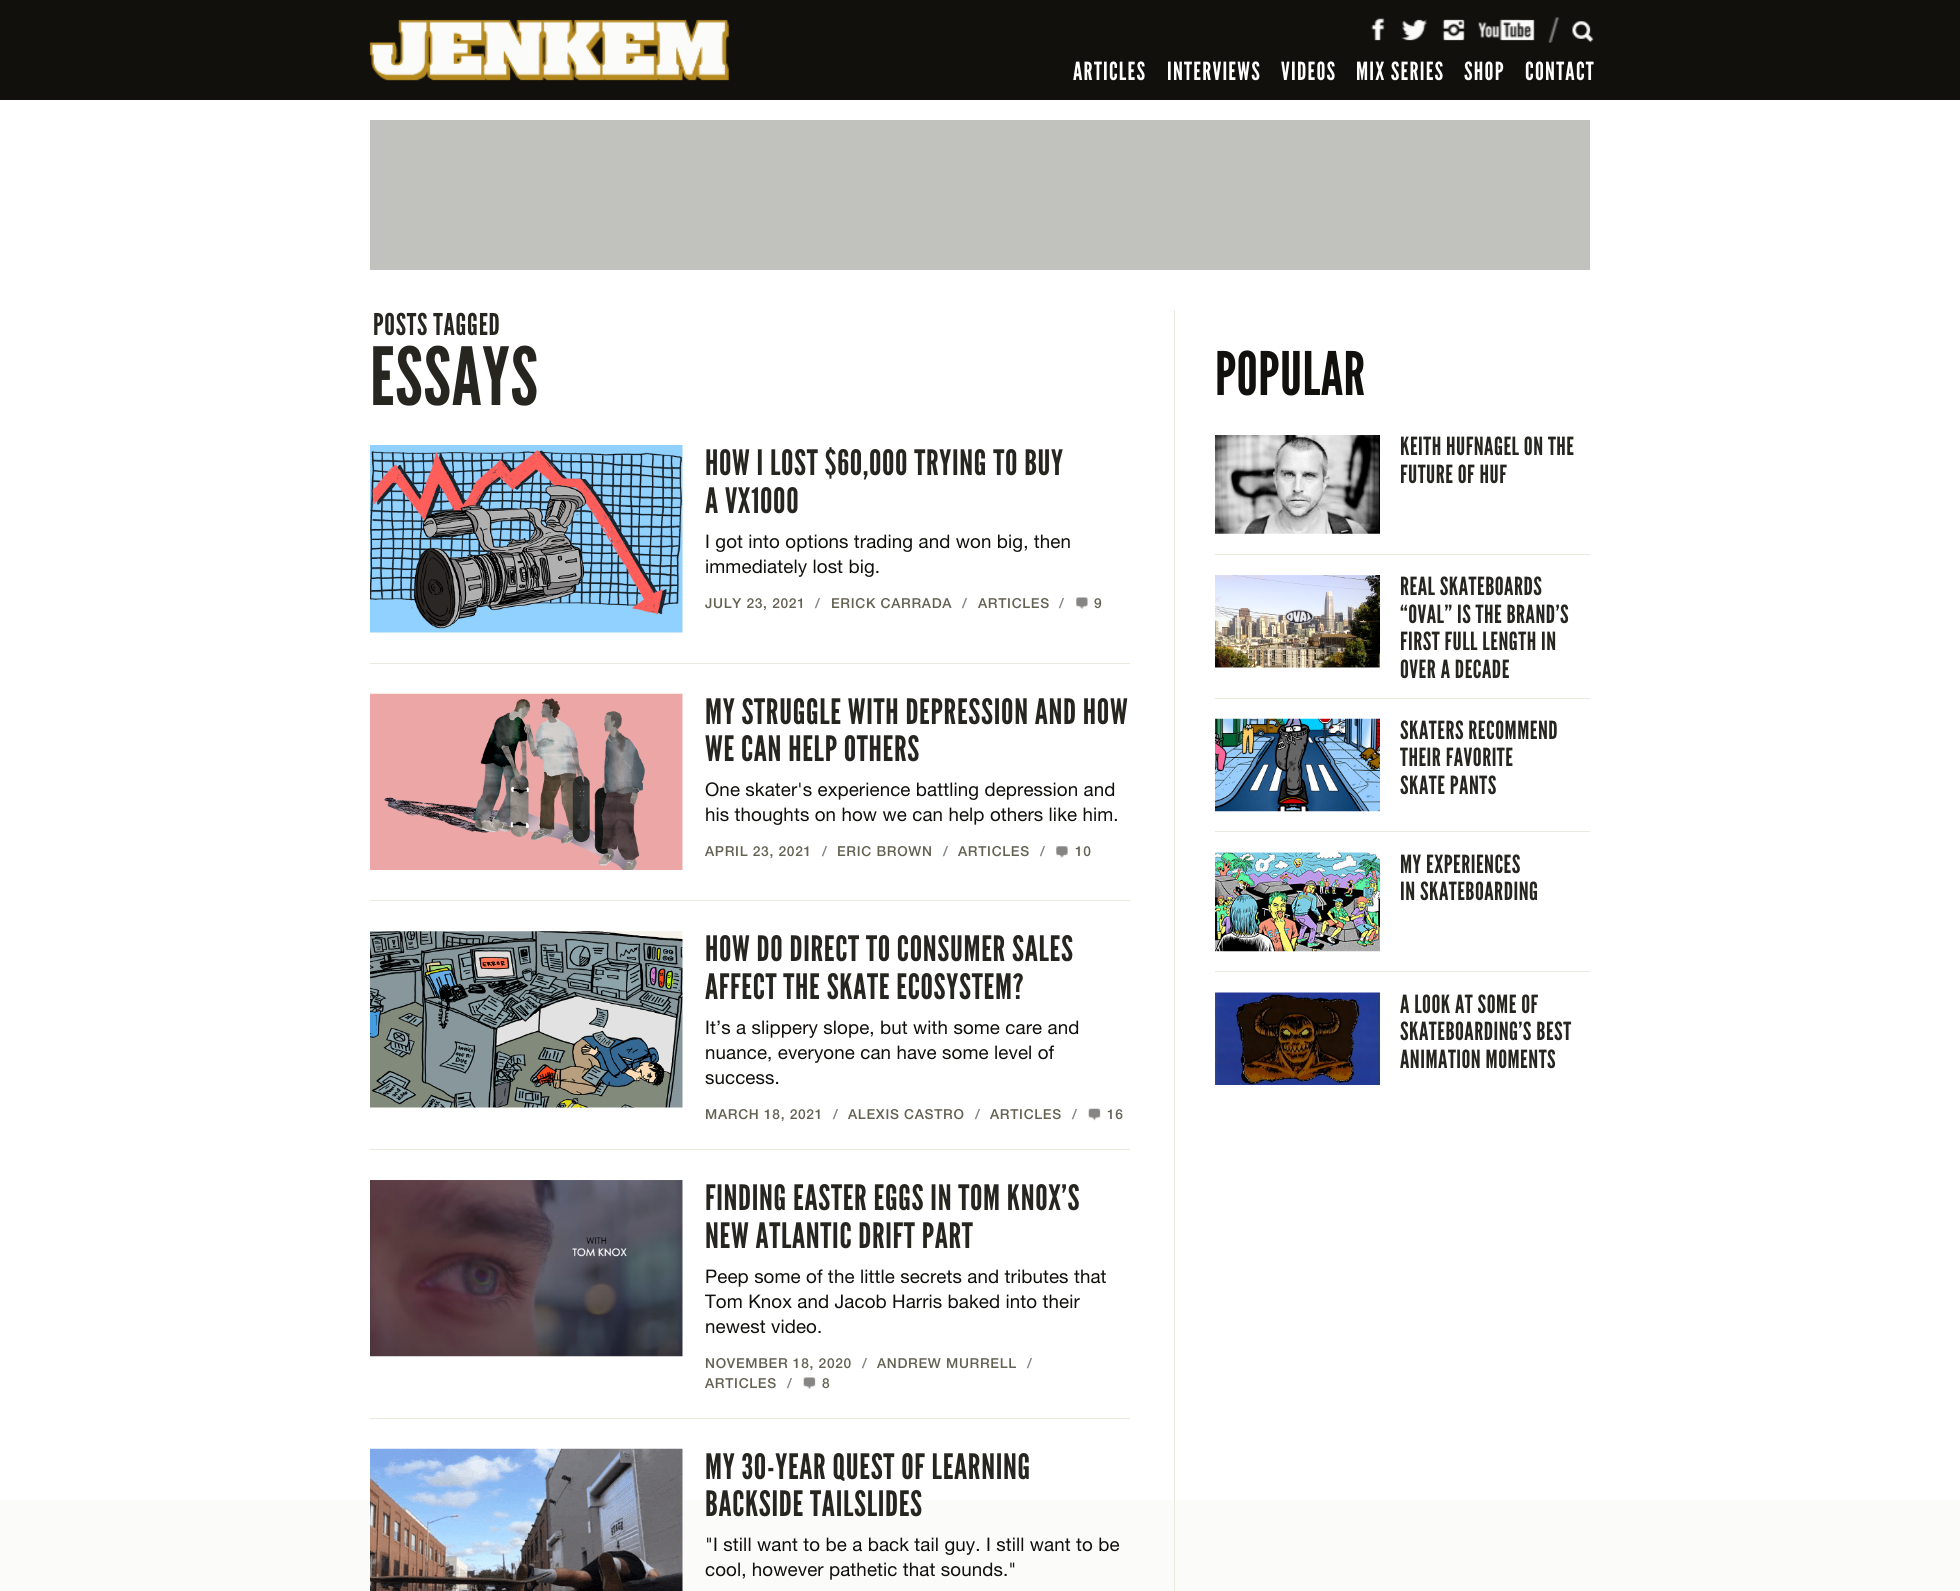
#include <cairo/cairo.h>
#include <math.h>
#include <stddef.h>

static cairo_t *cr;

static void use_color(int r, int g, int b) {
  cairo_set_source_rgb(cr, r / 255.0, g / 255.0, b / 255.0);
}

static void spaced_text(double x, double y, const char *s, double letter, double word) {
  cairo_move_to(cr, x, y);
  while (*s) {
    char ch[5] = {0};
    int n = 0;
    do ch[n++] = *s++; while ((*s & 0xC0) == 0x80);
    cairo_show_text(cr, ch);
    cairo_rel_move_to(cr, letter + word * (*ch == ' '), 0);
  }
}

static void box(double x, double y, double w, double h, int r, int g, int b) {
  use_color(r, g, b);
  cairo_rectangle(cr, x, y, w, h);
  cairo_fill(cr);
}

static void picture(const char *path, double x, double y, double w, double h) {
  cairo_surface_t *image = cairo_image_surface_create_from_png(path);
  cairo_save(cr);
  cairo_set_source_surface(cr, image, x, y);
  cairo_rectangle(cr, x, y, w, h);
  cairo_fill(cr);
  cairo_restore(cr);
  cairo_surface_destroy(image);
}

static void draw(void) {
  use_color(251, 251, 250);
  cairo_paint(cr);
  box(0, 0, 1960, 100, 17, 16, 13);
  picture("img_01.png", 369, 19, 360, 62);
  picture("img_02.png", 1371, 18, 14, 23);
  picture("img_03.png", 1401, 19, 26, 22);
  picture("img_04.png", 1442, 19, 23, 22);
  picture("img_05.png", 1478, 19, 57, 22);
  picture("img_06.png", 1548, 17, 12, 26);
  picture("img_07.png", 1572, 21, 22, 22);
  box(0, 100, 1960, 1400, 255, 255, 255);
  box(370, 120, 1220, 150, 193, 193, 189);
  box(1174, 310, 1, 1281, 234, 233, 222);
  picture("img_08.png", 370, 445, 313, 188);
  picture("img_09.png", 1076, 597, 12, 12);
  box(370, 663, 760, 1, 234, 233, 222);
  picture("img_10.png", 370, 693, 313, 177);
  picture("img_11.png", 1056, 846, 12, 12);
  box(370, 900, 760, 1, 234, 233, 222);
  picture("img_12.png", 370, 931, 313, 177);
  picture("img_13.png", 1088, 1108, 13, 13);
  box(370, 1149, 760, 1, 234, 233, 222);
  picture("img_14.png", 370, 1180, 313, 177);
  picture("img_15.png", 803, 1377, 13, 12);
  box(370, 1418, 760, 1, 234, 233, 222);
  picture("img_16.png", 370, 1448, 313, 143);
  picture("img_17.png", 1215, 435, 165, 99);
  box(1215, 554, 375, 1, 234, 233, 222);
  picture("img_18.png", 1215, 575, 165, 93);
  box(1215, 698, 375, 1, 234, 233, 222);
  picture("img_19.png", 1215, 718, 165, 94);
  box(1215, 831, 375, 1, 234, 233, 222);
  picture("img_20.png", 1215, 852, 165, 100);
  box(1215, 971, 375, 1, 234, 233, 222);
  picture("img_21.png", 1215, 992, 165, 93);
  cairo_select_font_face(cr, "League Gothic", CAIRO_FONT_SLANT_NORMAL, CAIRO_FONT_WEIGHT_NORMAL);
  cairo_set_font_size(cr, 25);
  use_color(255, 255, 255);
  spaced_text(1073, 80, "ARTICLES", 1.25, 0);
  spaced_text(1167, 80, "INTERVIEWS", 1.25, 0);
  spaced_text(1281, 80, "VIDEOS", 1.25, 0);
  spaced_text(1356, 80, "MIX SERIES", 1.25, 0);
  spaced_text(1464, 80, "SHOP", 1.25, 0);
  spaced_text(1525, 80, "CONTACT", 1.25, 0);
  cairo_set_font_size(cr, 30);
  use_color(38, 37, 32);
  spaced_text(373, 335, "POSTS TAGGED", 0.75, 0);
  cairo_set_font_size(cr, 80);
  spaced_text(370, 405, "ESSAYS", 0.75, 0);
  cairo_set_font_size(cr, 35);
  spaced_text(705, 475, "HOW I LOST $60,000 TRYING TO BUY", 0.7, 0);
  spaced_text(705, 513, "A VX1000", 0.7, 0);
  cairo_select_font_face(cr, "Helvetica Neue", CAIRO_FONT_SLANT_NORMAL, CAIRO_FONT_WEIGHT_NORMAL);
  cairo_set_font_size(cr, 18.75);
  use_color(17, 16, 13);
  spaced_text(705, 548, "I got into options trading and won big, then", 0.1, 0);
  spaced_text(705, 573, "immediately lost big.", 0.1, 0);
  cairo_select_font_face(cr, "Helvetica Neue Medium", CAIRO_FONT_SLANT_NORMAL, CAIRO_FONT_WEIGHT_NORMAL);
  cairo_set_font_size(cr, 13.75);
  use_color(100, 98, 83);
  spaced_text(705, 608, "JULY 23, 2021", 0.7, 0);
  use_color(134, 133, 131);
  spaced_text(815, 608, "/", 0.7, 0);
  use_color(100, 98, 83);
  spaced_text(831, 608, "ERICK CARRADA", 0.7, 0);
  use_color(134, 133, 131);
  spaced_text(962, 608, "/", 0.7, 0);
  use_color(100, 98, 83);
  spaced_text(978, 608, "ARTICLES", 0.7, 0);
  use_color(134, 133, 131);
  spaced_text(1059, 608, "/", 0.7, 0);
  use_color(100, 98, 83);
  spaced_text(1094, 608, "9", 0.7, 0);
  cairo_select_font_face(cr, "League Gothic", CAIRO_FONT_SLANT_NORMAL, CAIRO_FONT_WEIGHT_NORMAL);
  cairo_set_font_size(cr, 35);
  use_color(38, 37, 32);
  spaced_text(705, 724, "MY STRUGGLE WITH DEPRESSION AND HOW", 0.7, 0);
  spaced_text(705, 761, "WE CAN HELP OTHERS", 0.7, 0);
  cairo_select_font_face(cr, "Helvetica Neue", CAIRO_FONT_SLANT_NORMAL, CAIRO_FONT_WEIGHT_NORMAL);
  cairo_set_font_size(cr, 18.75);
  use_color(17, 16, 13);
  spaced_text(705, 796, "One skater's experience battling depression and", 0.1, 0);
  spaced_text(705, 821, "his thoughts on how we can help others like him.", 0.1, 0);
  cairo_select_font_face(cr, "Helvetica Neue Medium", CAIRO_FONT_SLANT_NORMAL, CAIRO_FONT_WEIGHT_NORMAL);
  cairo_set_font_size(cr, 13.75);
  use_color(100, 98, 83);
  spaced_text(705, 856, "APRIL 23, 2021", 0.7, 0);
  use_color(134, 133, 131);
  spaced_text(822, 856, "/", 0.7, 0);
  use_color(100, 98, 83);
  spaced_text(837, 856, "ERIC BROWN", 0.7, 0);
  use_color(134, 133, 131);
  spaced_text(943, 856, "/", 0.7, 0);
  use_color(100, 98, 83);
  spaced_text(958, 856, "ARTICLES", 0.7, 0);
  use_color(134, 133, 131);
  spaced_text(1040, 856, "/", 0.7, 0);
  use_color(100, 98, 83);
  spaced_text(1075, 856, "10", 0.7, 0);
  cairo_select_font_face(cr, "League Gothic", CAIRO_FONT_SLANT_NORMAL, CAIRO_FONT_WEIGHT_NORMAL);
  cairo_set_font_size(cr, 35);
  use_color(38, 37, 32);
  spaced_text(705, 961, "HOW DO DIRECT TO CONSUMER SALES", 0.7, 0);
  spaced_text(705, 999, "AFFECT THE SKATE ECOSYSTEM?", 0.7, 0);
  cairo_select_font_face(cr, "Helvetica Neue", CAIRO_FONT_SLANT_NORMAL, CAIRO_FONT_WEIGHT_NORMAL);
  cairo_set_font_size(cr, 18.75);
  use_color(17, 16, 13);
  spaced_text(705, 1034, "It’s a slippery slope, but with some care and", 0.1, 0);
  spaced_text(705, 1059, "nuance, everyone can have some level of", 0.1, 0);
  spaced_text(705, 1084, "success.", 0.1, 0);
  cairo_select_font_face(cr, "Helvetica Neue Medium", CAIRO_FONT_SLANT_NORMAL, CAIRO_FONT_WEIGHT_NORMAL);
  cairo_set_font_size(cr, 13.75);
  use_color(100, 98, 83);
  spaced_text(705, 1119, "MARCH 18, 2021", 0.7, 0);
  use_color(134, 133, 131);
  spaced_text(833, 1119, "/", 0.7, 0);
  use_color(100, 98, 83);
  spaced_text(848, 1119, "ALEXIS CASTRO", 0.7, 0);
  use_color(134, 133, 131);
  spaced_text(975, 1119, "/", 0.7, 0);
  use_color(100, 98, 83);
  spaced_text(990, 1119, "ARTICLES", 0.7, 0);
  use_color(134, 133, 131);
  spaced_text(1072, 1119, "/", 0.7, 0);
  use_color(100, 98, 83);
  spaced_text(1107, 1119, "16", 0.7, 0);
  cairo_select_font_face(cr, "League Gothic", CAIRO_FONT_SLANT_NORMAL, CAIRO_FONT_WEIGHT_NORMAL);
  cairo_set_font_size(cr, 35);
  use_color(38, 37, 32);
  spaced_text(705, 1210, "FINDING EASTER EGGS IN TOM KNOX’S", 0.7, 0);
  spaced_text(705, 1248, "NEW ATLANTIC DRIFT PART", 0.7, 0);
  cairo_select_font_face(cr, "Helvetica Neue", CAIRO_FONT_SLANT_NORMAL, CAIRO_FONT_WEIGHT_NORMAL);
  cairo_set_font_size(cr, 18.75);
  use_color(17, 16, 13);
  spaced_text(705, 1283, "Peep some of the little secrets and tributes that", 0.1, 0);
  spaced_text(705, 1308, "Tom Knox and Jacob Harris baked into their", 0.1, 0);
  spaced_text(705, 1333, "newest video.", 0.1, 0);
  cairo_select_font_face(cr, "Helvetica Neue Medium", CAIRO_FONT_SLANT_NORMAL, CAIRO_FONT_WEIGHT_NORMAL);
  cairo_set_font_size(cr, 13.75);
  use_color(100, 98, 83);
  spaced_text(705, 1368, "NOVEMBER 18, 2020", 0.7, 0);
  use_color(134, 133, 131);
  spaced_text(862, 1368, "/", 0.7, 0);
  use_color(100, 98, 83);
  spaced_text(877, 1368, "ANDREW MURRELL", 0.7, 0);
  use_color(134, 133, 131);
  spaced_text(1027, 1368, "/", 0.7, 0);
  use_color(100, 98, 83);
  spaced_text(705, 1388, "ARTICLES", 0.7, 0);
  use_color(134, 133, 131);
  spaced_text(787, 1388, "/", 0.7, 0);
  use_color(100, 98, 83);
  spaced_text(822, 1388, "8", 0.7, 0);
  cairo_select_font_face(cr, "League Gothic", CAIRO_FONT_SLANT_NORMAL, CAIRO_FONT_WEIGHT_NORMAL);
  cairo_set_font_size(cr, 35);
  use_color(38, 37, 32);
  spaced_text(705, 1479, "MY 30-YEAR QUEST OF LEARNING", 0.7, 0);
  spaced_text(705, 1516, "BACKSIDE TAILSLIDES", 0.7, 0);
  cairo_select_font_face(cr, "Helvetica Neue", CAIRO_FONT_SLANT_NORMAL, CAIRO_FONT_WEIGHT_NORMAL);
  cairo_set_font_size(cr, 18.75);
  use_color(17, 16, 13);
  spaced_text(705, 1551, "\"I still want to be a back tail guy. I still want to be", 0.1, 0);
  spaced_text(705, 1576, "cool, however pathetic that sounds.\"", 0.1, 0);
  cairo_select_font_face(cr, "League Gothic", CAIRO_FONT_SLANT_NORMAL, CAIRO_FONT_WEIGHT_NORMAL);
  cairo_set_font_size(cr, 60);
  spaced_text(1215, 395, "POPULAR", 0.5, 0);
  cairo_set_font_size(cr, 25);
  use_color(38, 37, 32);
  spaced_text(1400, 455, "KEITH HUFNAGEL ON THE", 0.5, 0);
  spaced_text(1400, 483, "FUTURE OF HUF", 0.5, 0);
  spaced_text(1400, 595, "REAL SKATEBOARDS", 0.5, 0);
  spaced_text(1400, 623, "“OVAL” IS THE BRAND’S", 0.5, 0);
  spaced_text(1400, 650, "FIRST FULL LENGTH IN", 0.5, 0);
  spaced_text(1400, 678, "OVER A DECADE", 0.5, 0);
  spaced_text(1400, 739, "SKATERS RECOMMEND", 0.5, 0);
  spaced_text(1400, 766, "THEIR FAVORITE", 0.5, 0);
  spaced_text(1400, 794, "SKATE PANTS", 0.5, 0);
  spaced_text(1400, 873, "MY EXPERIENCES", 0.5, 0);
  spaced_text(1400, 900, "IN SKATEBOARDING", 0.5, 0);
  spaced_text(1400, 1013, "A LOOK AT SOME OF", 0.5, 0);
  spaced_text(1400, 1040, "SKATEBOARDING’S BEST", 0.5, 0);
  spaced_text(1400, 1068, "ANIMATION MOMENTS", 0.5, 0);
}

int main(void) {
  cairo_surface_t *surface = cairo_image_surface_create(CAIRO_FORMAT_RGB24, 1960, 1591);
  cr = cairo_create(surface);
  cairo_font_options_t *options = cairo_font_options_create();
  cairo_font_options_set_hint_metrics(options, CAIRO_HINT_METRICS_OFF);
  cairo_font_options_set_hint_style(options, CAIRO_HINT_STYLE_NONE);
  cairo_set_font_options(cr, options);
  cairo_set_miter_limit(cr, 4);
  draw();
  cairo_surface_write_to_png(surface, "out.png");
  cairo_font_options_destroy(options);
  cairo_destroy(cr);
  cairo_surface_destroy(surface);
  return 0;
}
